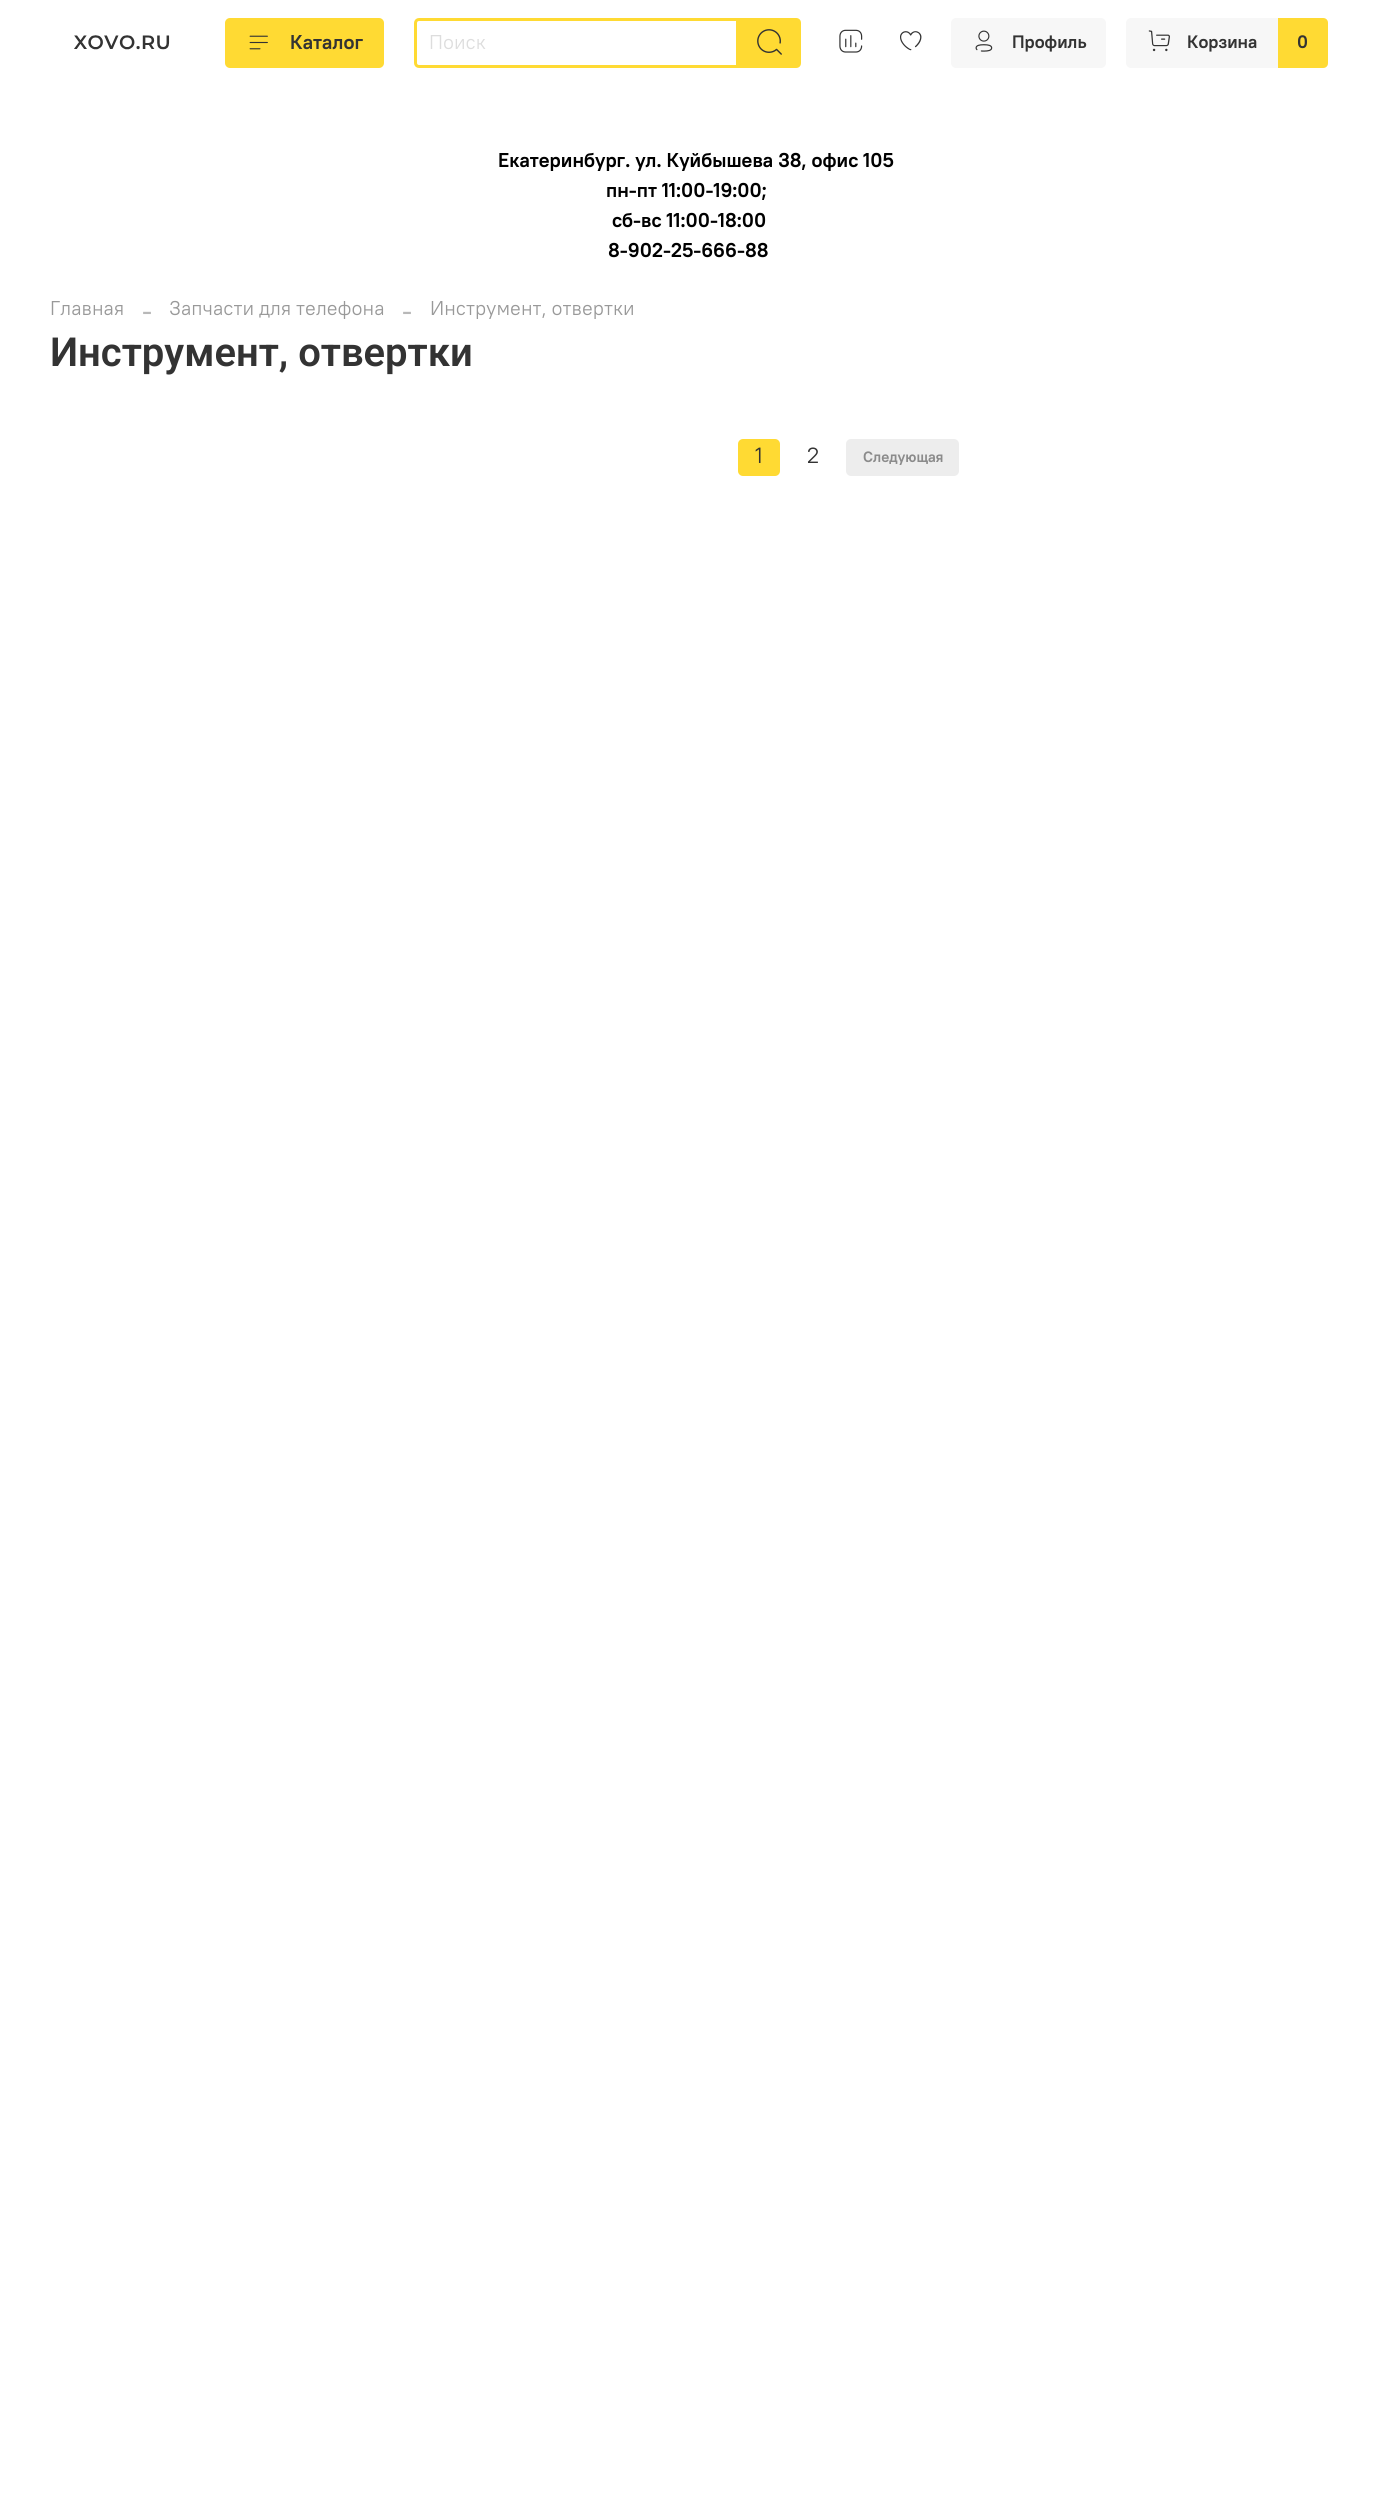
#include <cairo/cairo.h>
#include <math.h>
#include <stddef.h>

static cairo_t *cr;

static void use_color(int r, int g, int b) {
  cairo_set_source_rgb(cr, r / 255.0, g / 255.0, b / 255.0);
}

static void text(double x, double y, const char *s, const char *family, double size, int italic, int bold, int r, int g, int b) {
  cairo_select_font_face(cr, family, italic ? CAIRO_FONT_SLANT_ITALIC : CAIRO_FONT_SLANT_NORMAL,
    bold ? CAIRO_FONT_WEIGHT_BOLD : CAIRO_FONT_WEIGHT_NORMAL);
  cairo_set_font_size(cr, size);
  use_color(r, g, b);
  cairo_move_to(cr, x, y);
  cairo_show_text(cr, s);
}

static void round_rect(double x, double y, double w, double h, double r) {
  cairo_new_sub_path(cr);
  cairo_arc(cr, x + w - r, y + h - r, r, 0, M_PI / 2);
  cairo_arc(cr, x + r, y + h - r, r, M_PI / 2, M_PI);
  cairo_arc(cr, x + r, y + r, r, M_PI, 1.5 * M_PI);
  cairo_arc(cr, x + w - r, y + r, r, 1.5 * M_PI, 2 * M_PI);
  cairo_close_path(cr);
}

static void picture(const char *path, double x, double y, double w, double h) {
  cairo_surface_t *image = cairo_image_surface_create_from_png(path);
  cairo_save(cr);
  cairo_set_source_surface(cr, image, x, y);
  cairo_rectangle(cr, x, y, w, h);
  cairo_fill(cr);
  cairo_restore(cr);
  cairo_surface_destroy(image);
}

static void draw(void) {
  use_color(255, 255, 255);
  cairo_paint(cr);
  picture("img_01.png", 74, 35, 96, 15);
  use_color(255, 218, 51);
  round_rect(225, 18, 159, 50, 5);
  cairo_fill(cr);
  picture("img_02.png", 249, 35, 19, 15);
  cairo_new_path(cr);
  cairo_move_to(cr, 419, 19.5);
  cairo_line_to(cr, 737.5, 19.5);
  cairo_line_to(cr, 737.5, 66.5);
  cairo_line_to(cr, 419, 66.5);
  cairo_curve_to(cr, 417, 66.5, 415.5, 65, 415.5, 63);
  cairo_line_to(cr, 415.5, 23);
  cairo_curve_to(cr, 415.5, 21, 417, 19.5, 419, 19.5);
  cairo_close_path(cr);
  cairo_set_line_width(cr, 3);
  cairo_stroke(cr);
  cairo_new_path(cr);
  cairo_move_to(cr, 739, 18);
  cairo_line_to(cr, 796, 18);
  cairo_curve_to(cr, 799, 18, 801, 20, 801, 23);
  cairo_line_to(cr, 801, 63);
  cairo_curve_to(cr, 801, 66, 799, 68, 796, 68);
  cairo_line_to(cr, 739, 68);
  cairo_close_path(cr);
  cairo_fill(cr);
  picture("img_03.png", 757, 29, 25, 26);
  picture("img_04.png", 839, 29, 24, 24);
  picture("img_05.png", 900, 31, 22, 20);
  use_color(247, 247, 247);
  round_rect(951, 18, 155, 50, 5);
  cairo_fill(cr);
  picture("img_06.png", 975, 30, 18, 22);
  round_rect(1126, 18, 202, 50, 5);
  cairo_fill(cr);
  picture("img_07.png", 1148, 30, 22, 22);
  use_color(255, 218, 51);
  cairo_new_path(cr);
  cairo_move_to(cr, 1278, 18);
  cairo_line_to(cr, 1323, 18);
  cairo_curve_to(cr, 1326, 18, 1328, 20, 1328, 23);
  cairo_line_to(cr, 1328, 63);
  cairo_curve_to(cr, 1328, 66, 1326, 68, 1323, 68);
  cairo_line_to(cr, 1278, 68);
  cairo_close_path(cr);
  cairo_fill(cr);
  round_rect(738, 439, 42, 37, 5);
  cairo_fill(cr);
  use_color(237, 237, 237);
  round_rect(846, 439, 113, 37, 5);
  cairo_fill(cr);
  text(290, 49, "Каталог", "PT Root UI", 20, 0, 1, 51, 51, 51);
  text(429, 49, "Поиск", "PT Root UI", 20, 0, 0, 221, 221, 221);
  text(1012, 48, "Профиль", "PT Root UI", 18, 0, 1, 51, 51, 51);
  text(1187, 48, "Корзина", "PT Root UI", 18, 0, 1, 51, 51, 51);
  text(1297, 48, "0", "PT Root UI", 18, 0, 1, 51, 51, 51);
  text(498, 167, "Екатеринбург. ул. Куйбышева 38, офис 105", "PT Root UI", 20, 0, 1, 0, 0, 0);
  text(606, 197, "пн-пт 11:00-19:00;", "PT Root UI", 20, 0, 1, 0, 0, 0);
  text(612, 227, "сб-вс 11:00-18:00", "PT Root UI", 20, 0, 1, 0, 0, 0);
  text(608, 257, "8-902-25-666-88", "PT Root UI", 20, 0, 1, 0, 0, 0);
  text(50, 315, "Главная", "PT Root UI", 20, 0, 0, 153, 153, 153);
  text(142, 320, "-", "Liberation Serif", 30, 0, 0, 184, 184, 184);
  text(169, 315, "Запчасти для телефона", "PT Root UI", 20, 0, 0, 153, 153, 153);
  text(402, 320, "-", "Liberation Serif", 30, 0, 0, 184, 184, 184);
  text(430, 315, "Инструмент, отвертки", "PT Root UI", 20, 0, 0, 153, 153, 153);
  text(50, 366, "Инструмент, отвертки", "Roboto SemiBold", 40, 0, 0, 51, 51, 51);
  text(755, 463, "1", "PT Root UI", 22, 0, 0, 51, 51, 51);
  text(807, 463, "2", "PT Root UI", 22, 0, 0, 51, 51, 51);
  text(863, 462, "Следующая", "PT Root UI", 15, 0, 1, 139, 139, 139);
}

int main(void) {
  cairo_surface_t *surface = cairo_image_surface_create(CAIRO_FORMAT_RGB24, 1377, 2500);
  cr = cairo_create(surface);
  cairo_font_options_t *options = cairo_font_options_create();
  cairo_font_options_set_hint_metrics(options, CAIRO_HINT_METRICS_OFF);
  cairo_font_options_set_hint_style(options, CAIRO_HINT_STYLE_NONE);
  cairo_set_font_options(cr, options);
  cairo_set_miter_limit(cr, 4);
  draw();
  cairo_surface_write_to_png(surface, "out.png");
  cairo_font_options_destroy(options);
  cairo_destroy(cr);
  cairo_surface_destroy(surface);
  return 0;
}
